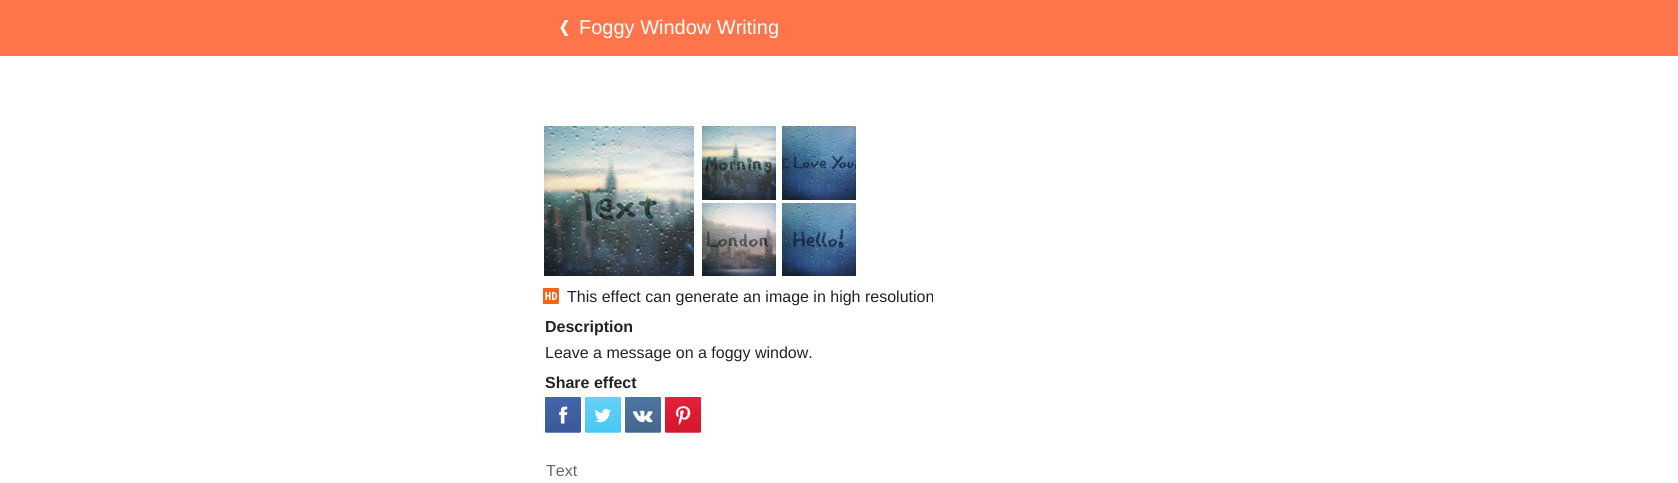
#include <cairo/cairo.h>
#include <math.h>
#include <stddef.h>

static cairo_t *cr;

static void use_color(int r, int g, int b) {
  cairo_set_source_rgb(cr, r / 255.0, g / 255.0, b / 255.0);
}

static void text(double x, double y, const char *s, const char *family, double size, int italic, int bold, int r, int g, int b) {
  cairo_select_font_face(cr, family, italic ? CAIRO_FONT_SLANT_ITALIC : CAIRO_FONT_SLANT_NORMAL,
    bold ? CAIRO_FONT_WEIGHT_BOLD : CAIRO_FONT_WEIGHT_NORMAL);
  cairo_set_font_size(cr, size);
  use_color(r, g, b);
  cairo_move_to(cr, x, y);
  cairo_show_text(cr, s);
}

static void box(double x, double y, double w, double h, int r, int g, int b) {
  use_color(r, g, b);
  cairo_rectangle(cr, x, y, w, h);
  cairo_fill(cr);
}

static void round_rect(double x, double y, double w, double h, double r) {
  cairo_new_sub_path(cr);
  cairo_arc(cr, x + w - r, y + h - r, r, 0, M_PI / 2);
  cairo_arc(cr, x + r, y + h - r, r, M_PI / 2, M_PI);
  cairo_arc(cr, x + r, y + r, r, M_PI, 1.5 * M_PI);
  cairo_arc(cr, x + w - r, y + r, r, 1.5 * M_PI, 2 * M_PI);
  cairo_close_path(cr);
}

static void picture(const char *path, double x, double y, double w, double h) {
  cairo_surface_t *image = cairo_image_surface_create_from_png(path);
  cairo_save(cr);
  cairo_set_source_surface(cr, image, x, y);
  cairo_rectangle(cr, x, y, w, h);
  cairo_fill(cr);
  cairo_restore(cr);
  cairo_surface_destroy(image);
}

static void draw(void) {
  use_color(255, 255, 255);
  cairo_paint(cr);
  box(0, 0, 1678, 56, 255, 117, 75);
  picture("img_01.png", 560, 20, 9, 17);
  picture("img_02.png", 544, 126, 150, 150);
  picture("img_03.png", 702, 126, 74, 74);
  picture("img_04.png", 782, 126, 74, 74);
  picture("img_05.png", 702, 203, 74, 73);
  picture("img_06.png", 782, 203, 74, 73);
  use_color(245, 101, 19);
  round_rect(543, 288, 16, 16, 1);
  cairo_fill(cr);
  picture("img_07.png", 545, 292, 12, 8);
  picture("img_08.png", 545, 397, 36, 36);
  picture("img_09.png", 585, 397, 36, 36);
  picture("img_10.png", 625, 397, 36, 36);
  picture("img_11.png", 665, 397, 36, 36);
  text(579, 34, "Foggy Window Writing", "Liberation Sans", 20, 0, 0, 255, 255, 255);
  text(567, 302, "This effect can generate an image in high resolution", "Liberation Sans", 16, 0, 0, 34, 34, 34);
  text(545, 332, "Description", "Liberation Sans", 16, 0, 1, 34, 34, 34);
  text(545, 358, "Leave a message on a foggy window.", "Liberation Sans", 16, 0, 0, 34, 34, 34);
  text(545, 388, "Share effect", "Liberation Sans", 16, 0, 1, 34, 34, 34);
  text(546, 476, "Text", "Liberation Sans", 16, 0, 0, 102, 102, 102);
}

int main(void) {
  cairo_surface_t *surface = cairo_image_surface_create(CAIRO_FORMAT_RGB24, 1678, 483);
  cr = cairo_create(surface);
  cairo_font_options_t *options = cairo_font_options_create();
  cairo_font_options_set_hint_metrics(options, CAIRO_HINT_METRICS_OFF);
  cairo_font_options_set_hint_style(options, CAIRO_HINT_STYLE_NONE);
  cairo_set_font_options(cr, options);
  cairo_set_miter_limit(cr, 4);
  draw();
  cairo_surface_write_to_png(surface, "out.png");
  cairo_font_options_destroy(options);
  cairo_destroy(cr);
  cairo_surface_destroy(surface);
  return 0;
}
